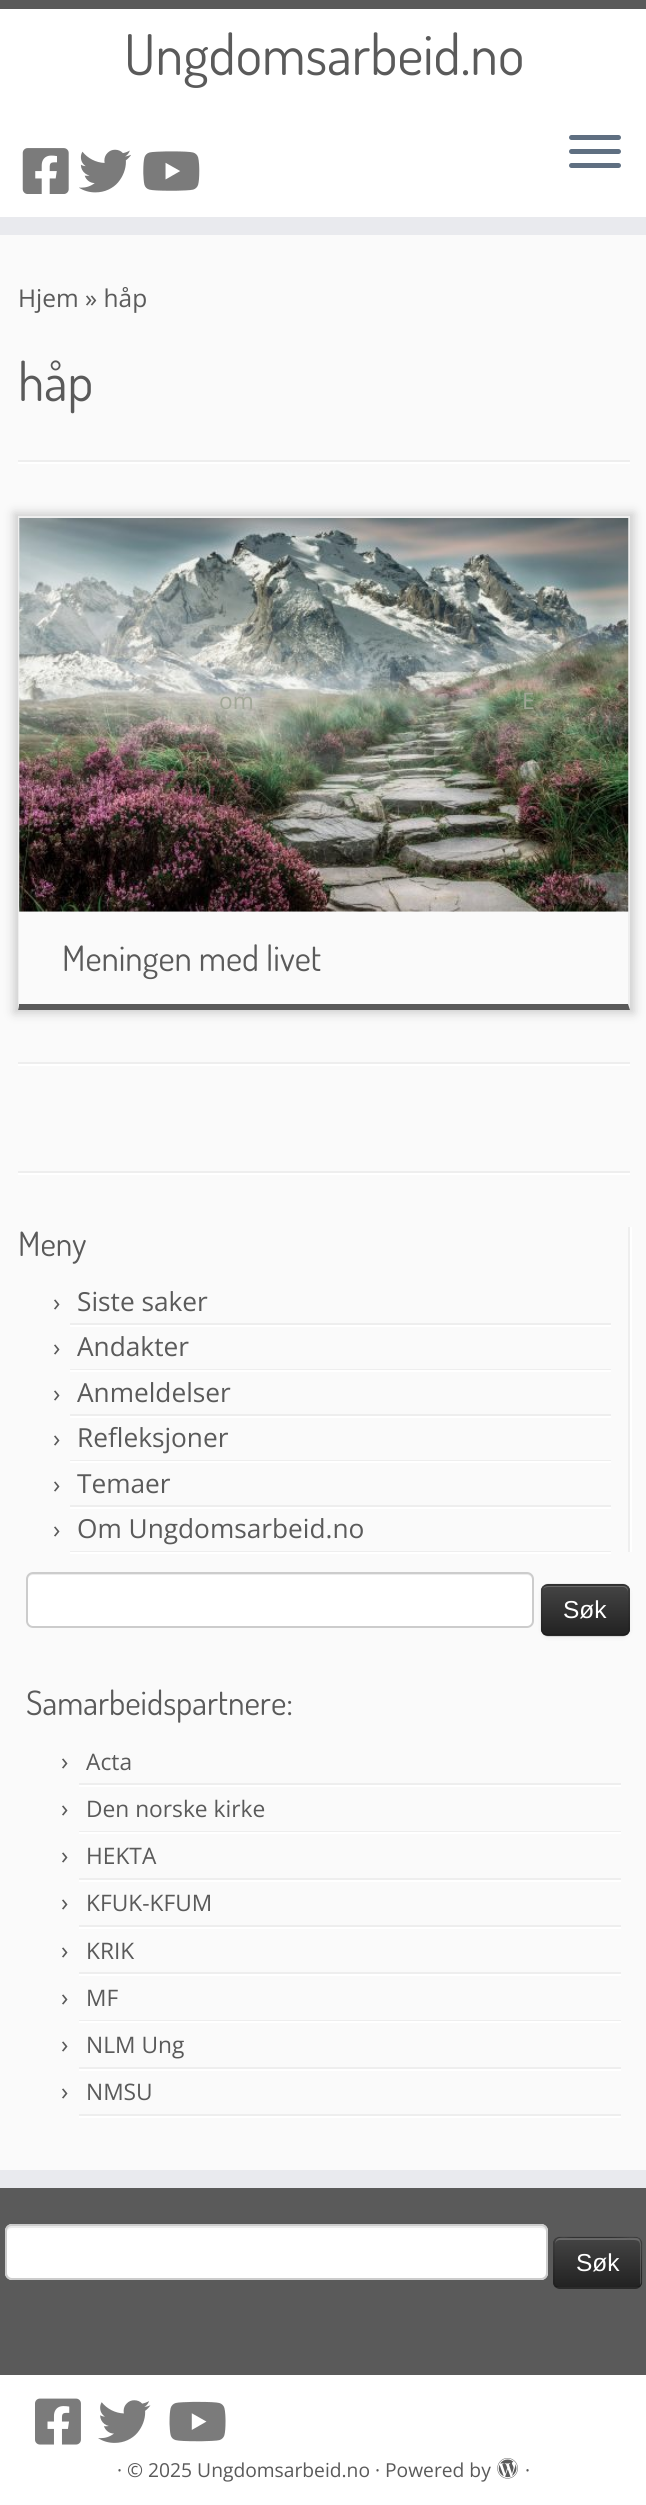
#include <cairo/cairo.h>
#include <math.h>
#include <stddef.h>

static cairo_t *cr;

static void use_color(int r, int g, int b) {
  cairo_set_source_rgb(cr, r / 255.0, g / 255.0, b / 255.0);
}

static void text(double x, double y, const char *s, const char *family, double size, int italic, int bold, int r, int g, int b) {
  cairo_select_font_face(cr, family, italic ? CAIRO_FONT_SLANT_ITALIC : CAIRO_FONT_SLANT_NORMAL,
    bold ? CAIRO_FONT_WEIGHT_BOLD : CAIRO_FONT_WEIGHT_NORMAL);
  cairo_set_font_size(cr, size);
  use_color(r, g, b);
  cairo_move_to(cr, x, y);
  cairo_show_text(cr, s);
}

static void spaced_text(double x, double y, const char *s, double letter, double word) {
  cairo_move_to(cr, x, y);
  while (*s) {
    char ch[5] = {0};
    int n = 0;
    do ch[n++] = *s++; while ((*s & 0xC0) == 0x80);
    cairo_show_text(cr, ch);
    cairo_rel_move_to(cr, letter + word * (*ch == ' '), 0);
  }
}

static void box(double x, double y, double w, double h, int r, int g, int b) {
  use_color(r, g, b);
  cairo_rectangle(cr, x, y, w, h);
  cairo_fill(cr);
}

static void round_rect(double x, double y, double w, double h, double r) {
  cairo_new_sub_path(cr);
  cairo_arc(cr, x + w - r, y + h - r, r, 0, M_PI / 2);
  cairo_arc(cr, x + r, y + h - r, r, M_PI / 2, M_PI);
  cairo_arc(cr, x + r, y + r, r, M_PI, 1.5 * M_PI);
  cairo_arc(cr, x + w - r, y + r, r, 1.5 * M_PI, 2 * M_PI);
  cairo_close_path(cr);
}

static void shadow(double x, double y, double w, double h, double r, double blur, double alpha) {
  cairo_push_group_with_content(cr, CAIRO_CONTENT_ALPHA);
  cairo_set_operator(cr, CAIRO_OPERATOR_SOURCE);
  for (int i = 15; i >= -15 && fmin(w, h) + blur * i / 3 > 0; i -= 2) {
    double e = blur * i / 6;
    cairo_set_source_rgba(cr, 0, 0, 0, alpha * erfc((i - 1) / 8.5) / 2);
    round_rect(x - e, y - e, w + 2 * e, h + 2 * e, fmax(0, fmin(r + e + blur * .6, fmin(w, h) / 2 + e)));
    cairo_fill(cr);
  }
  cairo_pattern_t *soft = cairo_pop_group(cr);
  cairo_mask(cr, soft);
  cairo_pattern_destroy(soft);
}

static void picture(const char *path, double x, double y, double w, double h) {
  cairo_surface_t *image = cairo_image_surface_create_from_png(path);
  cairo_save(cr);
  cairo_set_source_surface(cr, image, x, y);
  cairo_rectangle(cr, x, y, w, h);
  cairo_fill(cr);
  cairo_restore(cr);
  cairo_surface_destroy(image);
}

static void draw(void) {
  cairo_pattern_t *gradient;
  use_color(250, 250, 250);
  cairo_paint(cr);
  box(0, 9, 646, 208, 255, 255, 255);
  box(0, 0, 646, 9, 90, 90, 90);
  box(0, 217, 646, 18, 233, 234, 238);
  picture("img_01.png", 22, 148, 47, 46);
  picture("img_02.png", 79, 149, 52, 44);
  picture("img_03.png", 143, 151, 57, 40);
  use_color(95, 111, 129);
  round_rect(569, 135, 52, 5, 2.5);
  cairo_fill(cr);
  round_rect(569, 149, 52, 5, 2.5);
  cairo_fill(cr);
  round_rect(569, 163, 52, 5, 2.5);
  cairo_fill(cr);
  box(18, 460, 612, 2, 238, 238, 238);
  box(18, 462, 612, 2, 255, 255, 255);
  cairo_save(cr);
  cairo_set_fill_rule(cr, CAIRO_FILL_RULE_EVEN_ODD);
  cairo_new_path(cr);
  cairo_move_to(cr, 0, 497);
  cairo_line_to(cr, 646, 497);
  cairo_line_to(cr, 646, 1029);
  cairo_line_to(cr, 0, 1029);
  cairo_close_path(cr);
  cairo_move_to(cr, 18, 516);
  cairo_line_to(cr, 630, 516);
  cairo_line_to(cr, 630, 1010);
  cairo_line_to(cr, 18, 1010);
  cairo_close_path(cr);
  cairo_clip(cr);
  use_color(204, 204, 204);
  shadow(14, 513, 620, 500, 0, 5, 1);
  cairo_restore(cr);
  box(18, 516, 612, 2, 238, 238, 238);
  cairo_new_path(cr);
  cairo_move_to(cr, 630, 516);
  cairo_line_to(cr, 630, 1010);
  cairo_line_to(cr, 628, 1004);
  cairo_line_to(cr, 628, 518);
  cairo_close_path(cr);
  cairo_fill(cr);
  use_color(90, 90, 90);
  cairo_new_path(cr);
  cairo_move_to(cr, 630, 1010);
  cairo_line_to(cr, 18, 1010);
  cairo_line_to(cr, 19, 1004);
  cairo_line_to(cr, 628, 1004);
  cairo_close_path(cr);
  cairo_fill(cr);
  use_color(238, 238, 238);
  cairo_new_path(cr);
  cairo_move_to(cr, 18, 1010);
  cairo_line_to(cr, 18, 516);
  cairo_line_to(cr, 19, 518);
  cairo_line_to(cr, 19, 1004);
  cairo_close_path(cr);
  cairo_fill(cr);
  picture("img_04.png", 19, 518, 610, 394);
  box(18, 1062, 612, 2, 238, 238, 238);
  box(18, 1064, 612, 2, 255, 255, 255);
  box(18, 1171, 612, 2, 238, 238, 238);
  box(18, 1173, 612, 2, 255, 255, 255);
  box(628, 1227, 2, 325, 238, 238, 238);
  box(70, 1323, 541, 2, 238, 238, 238);
  box(70, 1325, 541, 2, 255, 255, 255);
  box(70, 1369, 541, 1, 238, 238, 238);
  box(70, 1370, 541, 2, 255, 255, 255);
  box(70, 1414, 541, 2, 238, 238, 238);
  box(70, 1416, 541, 2, 255, 255, 255);
  box(70, 1460, 541, 1, 238, 238, 238);
  box(70, 1461, 541, 2, 255, 255, 255);
  box(70, 1505, 541, 2, 238, 238, 238);
  box(70, 1507, 541, 2, 255, 255, 255);
  box(70, 1551, 541, 1, 238, 238, 238);
  box(70, 1552, 541, 2, 255, 255, 255);
  box(630, 1227, 2, 325, 255, 255, 255);
  round_rect(26, 1572, 508, 56, 7);
  cairo_fill(cr);
  use_color(236, 236, 236);
  cairo_new_path(cr);
  cairo_move_to(cr, 33, 1575);
  cairo_line_to(cr, 527, 1575);
  cairo_curve_to(cr, 530, 1575, 532, 1577, 532, 1580);
  cairo_line_to(cr, 532, 1578);
  cairo_curve_to(cr, 532, 1575, 530, 1573, 527, 1573);
  cairo_line_to(cr, 33, 1573);
  cairo_curve_to(cr, 30, 1573, 28, 1575, 28, 1578);
  cairo_line_to(cr, 28, 1580);
  cairo_curve_to(cr, 28, 1577, 30, 1575, 33, 1575);
  cairo_close_path(cr);
  cairo_fill(cr);
  round_rect(27, 1573, 506, 54, 6);
  use_color(204, 204, 204);
  cairo_stroke(cr);
  use_color(0, 0, 0);
  shadow(541, 1586, 89, 52, 7, 2, 0.05);
  use_color(54, 54, 54);
  round_rect(541, 1584, 89, 52, 7);
  cairo_fill(cr);
  cairo_save(cr);
  round_rect(541, 1584, 89, 52, 7);
  cairo_clip(cr);
  gradient = cairo_pattern_create_linear(585, 1586, 585, 1635);
  cairo_pattern_add_color_stop_rgba(gradient, 0, 0.267, 0.267, 0.267, 1);
  cairo_pattern_add_color_stop_rgba(gradient, 1, 0.133, 0.133, 0.133, 1);
  cairo_set_source(cr, gradient);
  cairo_pattern_destroy(gradient);
  cairo_rectangle(cr, 541, 1586, 89, 49);
  cairo_fill(cr);
  cairo_restore(cr);
  use_color(105, 105, 105);
  cairo_new_path(cr);
  cairo_move_to(cr, 548, 1587);
  cairo_line_to(cr, 623, 1587);
  cairo_curve_to(cr, 626, 1587, 628, 1590, 628, 1592);
  cairo_line_to(cr, 628, 1591);
  cairo_curve_to(cr, 628, 1588, 626, 1586, 623, 1586);
  cairo_line_to(cr, 548, 1586);
  cairo_curve_to(cr, 546, 1586, 544, 1587, 543, 1589);
  cairo_curve_to(cr, 544, 1588, 546, 1587, 548, 1587);
  cairo_close_path(cr);
  cairo_fill(cr);
  cairo_new_path(cr);
  cairo_move_to(cr, 627.5, 1633.5);
  cairo_curve_to(cr, 626, 1634.5, 624.5, 1635.5, 623, 1635.5);
  cairo_line_to(cr, 548, 1635.5);
  cairo_curve_to(cr, 546, 1635.5, 544.5, 1634.5, 543.5, 1633.5);
  cairo_set_source_rgba(cr, 0, 0, 0, 0.25);
  cairo_set_line_width(cr, 1.8);
  cairo_stroke(cr);
  cairo_new_path(cr);
  cairo_move_to(cr, 543.5, 1633.5);
  cairo_curve_to(cr, 542.5, 1632.5, 541.5, 1631, 541.5, 1629);
  cairo_line_to(cr, 541.5, 1591);
  cairo_curve_to(cr, 541.5, 1589, 542.5, 1587.5, 543.5, 1586.5);
  cairo_curve_to(cr, 544.5, 1585.5, 546, 1584.5, 548, 1584.5);
  cairo_line_to(cr, 623, 1584.5);
  cairo_curve_to(cr, 624.5, 1584.5, 626, 1585.5, 627.5, 1586.5);
  cairo_curve_to(cr, 628.5, 1587.5, 629, 1589, 629, 1591);
  cairo_line_to(cr, 629, 1629);
  cairo_curve_to(cr, 629, 1631, 628.5, 1632.5, 627.5, 1633.5);
  cairo_set_source_rgba(cr, 0, 0, 0, 0.1);
  cairo_stroke(cr);
  box(79, 1783, 542, 2, 238, 238, 238);
  box(79, 1785, 542, 2, 255, 255, 255);
  box(79, 1831, 542, 1, 238, 238, 238);
  box(79, 1832, 542, 2, 255, 255, 255);
  box(79, 1878, 542, 2, 238, 238, 238);
  box(79, 1880, 542, 2, 255, 255, 255);
  box(79, 1925, 542, 2, 238, 238, 238);
  box(79, 1927, 542, 2, 255, 255, 255);
  box(79, 1972, 542, 2, 238, 238, 238);
  box(79, 1974, 542, 2, 255, 255, 255);
  box(79, 2020, 542, 1, 238, 238, 238);
  box(79, 2021, 542, 2, 255, 255, 255);
  box(79, 2067, 542, 2, 238, 238, 238);
  box(79, 2069, 542, 2, 255, 255, 255);
  box(79, 2114, 542, 2, 238, 238, 238);
  box(79, 2116, 542, 2, 255, 255, 255);
  box(0, 2188, 646, 187, 90, 90, 90);
  box(0, 2170, 646, 18, 233, 234, 238);
  use_color(255, 255, 255);
  round_rect(5, 2224, 543, 56, 7);
  cairo_fill(cr);
  use_color(236, 236, 236);
  cairo_new_path(cr);
  cairo_move_to(cr, 12, 2228);
  cairo_line_to(cr, 541, 2228);
  cairo_curve_to(cr, 544, 2228, 546, 2230, 546, 2233);
  cairo_curve_to(cr, 546, 2230, 545, 2226, 541, 2226);
  cairo_line_to(cr, 12, 2226);
  cairo_curve_to(cr, 8, 2226, 7, 2230, 7, 2233);
  cairo_curve_to(cr, 7, 2230, 9, 2228, 12, 2228);
  cairo_close_path(cr);
  cairo_fill(cr);
  round_rect(6, 2225, 541, 54, 6);
  use_color(204, 204, 204);
  cairo_set_line_width(cr, 2);
  cairo_stroke(cr);
  use_color(54, 54, 54);
  round_rect(553, 2237, 89, 52, 7);
  cairo_fill(cr);
  cairo_save(cr);
  round_rect(553, 2237, 89, 52, 7);
  cairo_clip(cr);
  gradient = cairo_pattern_create_linear(598, 2238, 598, 2287);
  cairo_pattern_add_color_stop_rgba(gradient, 0, 0.267, 0.267, 0.267, 1);
  cairo_pattern_add_color_stop_rgba(gradient, 1, 0.133, 0.133, 0.133, 1);
  cairo_set_source(cr, gradient);
  cairo_pattern_destroy(gradient);
  cairo_rectangle(cr, 553, 2238, 89, 49);
  cairo_fill(cr);
  cairo_restore(cr);
  cairo_set_source_rgba(cr, 1, 1, 1, 0.2);
  cairo_new_path(cr);
  cairo_move_to(cr, 560, 2240);
  cairo_line_to(cr, 622, 2240);
  cairo_curve_to(cr, 643, 2240, 640, 2238, 640, 2258);
  cairo_line_to(cr, 640, 2285);
  cairo_curve_to(cr, 642, 2283, 641, 2278, 641, 2276);
  cairo_line_to(cr, 641, 2262);
  cairo_curve_to(cr, 641, 2232, 645, 2238, 611, 2238);
  cairo_line_to(cr, 573, 2238);
  cairo_curve_to(cr, 564, 2238, 555, 2235, 555, 2245);
  cairo_curve_to(cr, 555, 2242, 557, 2240, 560, 2240);
  cairo_close_path(cr);
  cairo_fill(cr);
  cairo_new_path(cr);
  cairo_move_to(cr, 639.5, 2286.5);
  cairo_curve_to(cr, 638.5, 2287.5, 637, 2288, 635, 2288);
  cairo_line_to(cr, 560, 2288);
  cairo_curve_to(cr, 558.5, 2288, 557, 2287.5, 555.5, 2286.5);
  cairo_set_source_rgba(cr, 0, 0, 0, 0.25);
  cairo_set_line_width(cr, 1.8);
  cairo_stroke(cr);
  cairo_new_path(cr);
  cairo_move_to(cr, 555.5, 2286.5);
  cairo_curve_to(cr, 554.5, 2285, 554, 2283.5, 554, 2282);
  cairo_line_to(cr, 554, 2243.5);
  cairo_curve_to(cr, 554, 2242, 554.5, 2240.5, 555.5, 2239);
  cairo_curve_to(cr, 557, 2238, 558.5, 2237.5, 560, 2237.5);
  cairo_line_to(cr, 635, 2237.5);
  cairo_curve_to(cr, 637, 2237.5, 638.5, 2238, 639.5, 2239);
  cairo_curve_to(cr, 640.5, 2240.5, 641.5, 2242, 641.5, 2243.5);
  cairo_line_to(cr, 641.5, 2282);
  cairo_curve_to(cr, 641.5, 2283.5, 640.5, 2285, 639.5, 2286.5);
  cairo_set_source_rgba(cr, 0, 0, 0, 0.1);
  cairo_stroke(cr);
  box(0, 2375, 646, 130, 255, 255, 255);
  picture("img_05.png", 35, 2398, 46, 47);
  picture("img_06.png", 98, 2400, 53, 43);
  picture("img_07.png", 169, 2401, 57, 41);
  picture("img_08.png", 497, 2458, 21, 21);
  text(124, 75, "Ungdomsarbeid.no", "Dosis", 56, 0, 0, 90, 90, 90);
  text(18, 307, "Hjem » håp", "Open Sans", 24.5, 0, 0, 90, 90, 90);
  text(18, 401, "håp", "Dosis", 53, 0, 0, 90, 90, 90);
  cairo_select_font_face(cr, "Open Sans", CAIRO_FONT_SLANT_NORMAL, CAIRO_FONT_WEIGHT_NORMAL);
  cairo_set_font_size(cr, 22.75);
  use_color(161, 167, 151);
  spaced_text(219, 709, "om", 0, 4);
  spaced_text(522, 709, "E", 0, 4);
  text(62, 971, "Meningen med livet", "Dosis", 35, 0, 0, 90, 90, 90);
  text(18, 1256, "Meny", "Dosis", 33.5, 0, 0, 90, 90, 90);
  text(53, 1311, "›", "Open Sans", 24.5, 0, 0, 90, 90, 90);
  text(77, 1311, "Siste saker", "Open Sans", 26.25, 0, 0, 90, 90, 90);
  text(53, 1356, "›", "Open Sans", 24.5, 0, 0, 90, 90, 90);
  text(77, 1356, "Andakter", "Open Sans", 26.25, 0, 0, 90, 90, 90);
  text(53, 1402, "›", "Open Sans", 24.5, 0, 0, 90, 90, 90);
  text(77, 1402, "Anmeldelser", "Open Sans", 26.25, 0, 0, 90, 90, 90);
  text(53, 1447, "›", "Open Sans", 24.5, 0, 0, 90, 90, 90);
  text(77, 1447, "Refleksjoner", "Open Sans", 26.25, 0, 0, 90, 90, 90);
  text(53, 1493, "›", "Open Sans", 24.5, 0, 0, 90, 90, 90);
  text(77, 1493, "Temaer", "Open Sans", 26.25, 0, 0, 90, 90, 90);
  text(53, 1538, "›", "Open Sans", 24.5, 0, 0, 90, 90, 90);
  text(77, 1538, "Om Ungdomsarbeid.no", "Open Sans", 26.25, 0, 0, 90, 90, 90);
  text(563, 1618, "Søk", "Liberation Sans", 24.5, 0, 0, 255, 255, 255);
  text(26, 1715, "Samarbeidspartnere:", "Dosis", 33.5, 0, 0, 90, 90, 90);
  text(61, 1770, "›", "Open Sans", 24.5, 0, 0, 90, 90, 90);
  text(86, 1770, "Acta", "Open Sans", 22.75, 0, 0, 90, 90, 90);
  text(61, 1817, "›", "Open Sans", 24.5, 0, 0, 90, 90, 90);
  text(86, 1817, "Den norske kirke", "Open Sans", 22.75, 0, 0, 90, 90, 90);
  text(61, 1864, "›", "Open Sans", 24.5, 0, 0, 90, 90, 90);
  text(86, 1864, "HEKTA", "Open Sans", 22.75, 0, 0, 90, 90, 90);
  text(61, 1911, "›", "Open Sans", 24.5, 0, 0, 90, 90, 90);
  text(86, 1911, "KFUK-KFUM", "Open Sans", 22.75, 0, 0, 90, 90, 90);
  text(61, 1959, "›", "Open Sans", 24.5, 0, 0, 90, 90, 90);
  text(86, 1959, "KRIK", "Open Sans", 22.75, 0, 0, 90, 90, 90);
  text(61, 2006, "›", "Open Sans", 24.5, 0, 0, 90, 90, 90);
  text(86, 2006, "MF", "Open Sans", 22.75, 0, 0, 90, 90, 90);
  text(61, 2053, "›", "Open Sans", 24.5, 0, 0, 90, 90, 90);
  text(86, 2053, "NLM Ung", "Open Sans", 22.75, 0, 0, 90, 90, 90);
  text(61, 2100, "›", "Open Sans", 24.5, 0, 0, 90, 90, 90);
  text(86, 2100, "NMSU", "Open Sans", 22.75, 0, 0, 90, 90, 90);
  text(576, 2271, "Søk", "Liberation Sans", 24.5, 0, 0, 255, 255, 255);
  text(117, 2477, "· © 2025 Ungdomsarbeid.no · Powered by", "Open Sans", 19.25, 0, 0, 90, 90, 90);
  text(525, 2477, "·", "Open Sans", 19.25, 0, 0, 90, 90, 90);
}

int main(void) {
  cairo_surface_t *surface = cairo_image_surface_create(CAIRO_FORMAT_RGB24, 646, 2505);
  cr = cairo_create(surface);
  cairo_font_options_t *options = cairo_font_options_create();
  cairo_font_options_set_hint_metrics(options, CAIRO_HINT_METRICS_OFF);
  cairo_font_options_set_hint_style(options, CAIRO_HINT_STYLE_NONE);
  cairo_set_font_options(cr, options);
  cairo_set_miter_limit(cr, 4);
  draw();
  cairo_surface_write_to_png(surface, "out.png");
  cairo_font_options_destroy(options);
  cairo_destroy(cr);
  cairo_surface_destroy(surface);
  return 0;
}
